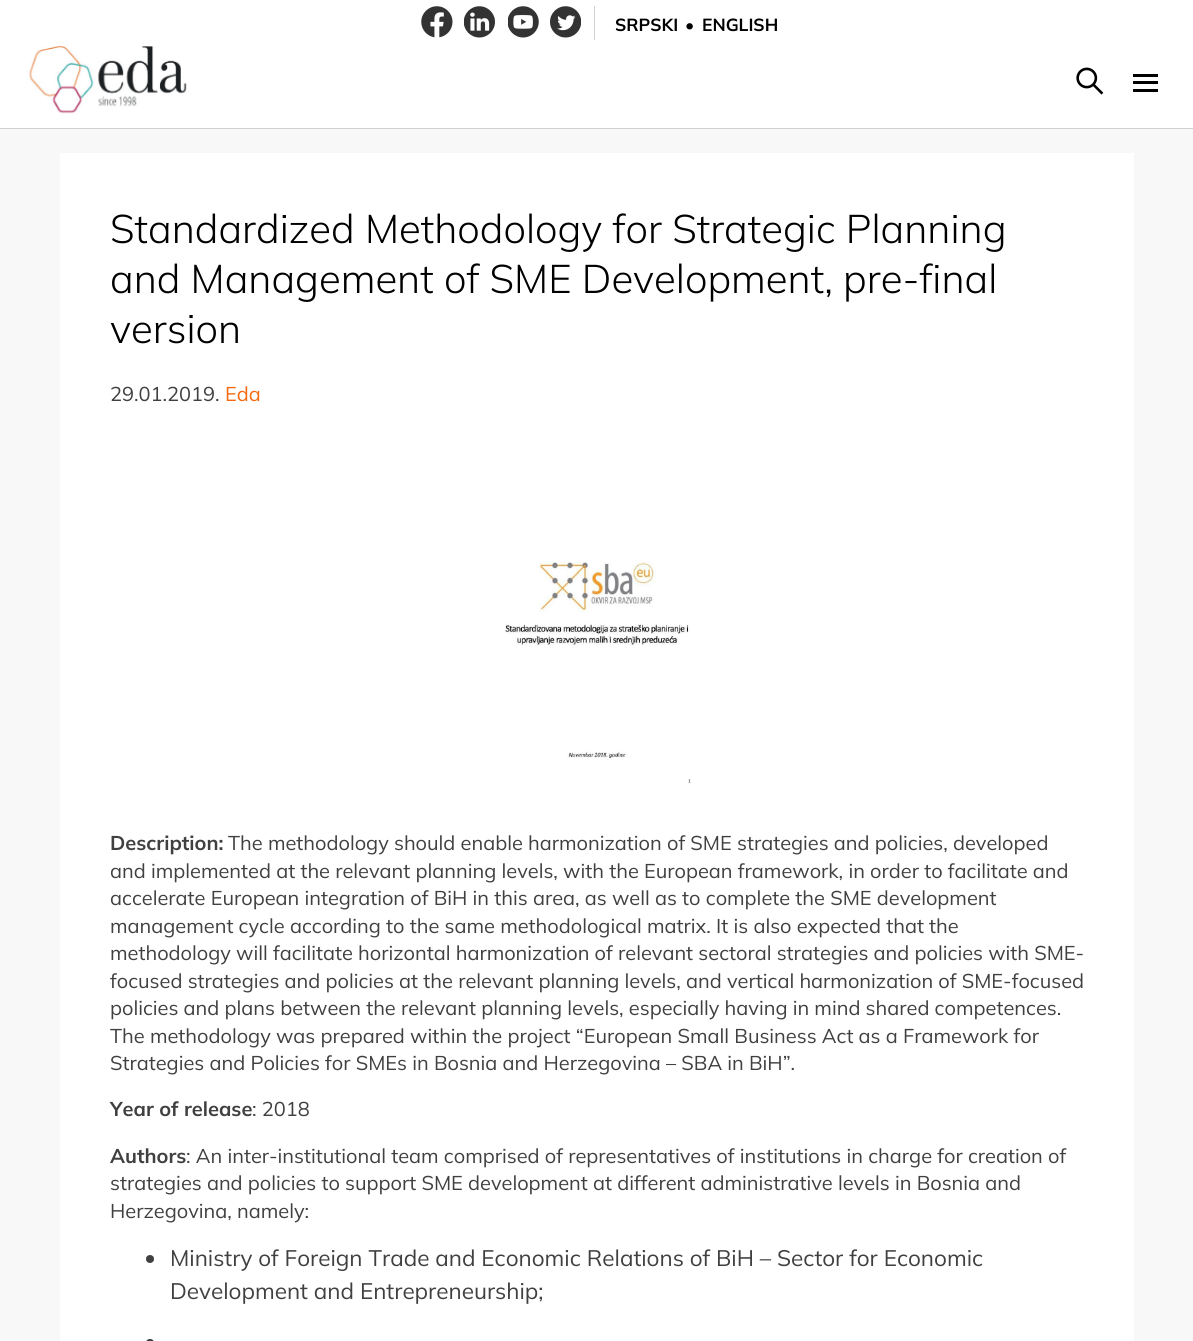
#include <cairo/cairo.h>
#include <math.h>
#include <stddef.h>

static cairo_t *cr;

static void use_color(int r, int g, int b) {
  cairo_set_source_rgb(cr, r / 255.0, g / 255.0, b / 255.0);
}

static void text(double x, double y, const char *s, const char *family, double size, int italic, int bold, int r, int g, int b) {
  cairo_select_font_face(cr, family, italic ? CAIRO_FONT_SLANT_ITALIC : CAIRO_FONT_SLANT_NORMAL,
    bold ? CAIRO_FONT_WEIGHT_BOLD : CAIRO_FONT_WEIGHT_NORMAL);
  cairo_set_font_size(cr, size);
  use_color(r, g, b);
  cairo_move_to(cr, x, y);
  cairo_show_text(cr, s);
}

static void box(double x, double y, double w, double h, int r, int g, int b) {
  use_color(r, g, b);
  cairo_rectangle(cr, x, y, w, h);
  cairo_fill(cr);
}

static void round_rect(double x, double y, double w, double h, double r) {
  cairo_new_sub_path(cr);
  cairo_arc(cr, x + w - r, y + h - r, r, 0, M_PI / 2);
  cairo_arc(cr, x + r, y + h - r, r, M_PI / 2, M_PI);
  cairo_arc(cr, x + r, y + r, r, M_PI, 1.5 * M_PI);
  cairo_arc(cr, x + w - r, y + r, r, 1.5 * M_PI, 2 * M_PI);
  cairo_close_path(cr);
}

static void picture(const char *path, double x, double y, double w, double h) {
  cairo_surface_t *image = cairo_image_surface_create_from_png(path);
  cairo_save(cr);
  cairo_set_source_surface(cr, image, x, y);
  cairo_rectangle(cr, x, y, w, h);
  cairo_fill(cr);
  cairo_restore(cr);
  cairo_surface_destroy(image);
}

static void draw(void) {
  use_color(248, 248, 248);
  cairo_paint(cr);
  box(0, 0, 1193, 128, 255, 255, 255);
  box(0, 128, 1193, 1, 209, 209, 209);
  box(594, 6, 1, 34, 209, 209, 209);
  picture("img_01.png", 421, 6, 32, 32);
  picture("img_02.png", 464, 6, 31, 32);
  picture("img_03.png", 508, 6, 31, 32);
  picture("img_04.png", 550, 6, 31, 32);
  picture("img_05.png", 29, 46, 158, 68);
  picture("img_06.png", 1076, 67, 28, 28);
  box(1133, 74, 25, 3, 0, 0, 0);
  box(1133, 81, 25, 3, 0, 0, 0);
  box(1133, 89, 25, 3, 0, 0, 0);
  box(60, 153, 1074, 1188, 255, 255, 255);
  picture("img_07.png", 504, 561, 187, 223);
  use_color(64, 64, 64);
  cairo_arc(cr, 150, 1259, 4, 0, 2 * M_PI);
  cairo_fill(cr);
  round_rect(146, 1339, 8, 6, 3.5);
  cairo_fill(cr);
  text(615, 31, "SRPSKI", "Mulish", 17.5, 0, 1, 0, 0, 0);
  text(685, 31, "•", "Mulish", 17.5, 0, 1, 0, 0, 0);
  text(702, 31, "ENGLISH", "Mulish", 17.5, 0, 1, 0, 0, 0);
  text(110, 243, "Standardized Methodology for Strategic Planning", "Mulish Light", 40, 0, 0, 0, 0, 0);
  text(110, 293, "and Management of SME Development, pre-final", "Mulish Light", 40, 0, 0, 0, 0, 0);
  text(110, 343, "version", "Mulish Light", 40, 0, 0, 0, 0, 0);
  text(110, 401, "29.01.2019.", "Mulish", 20, 0, 0, 64, 64, 64);
  text(225, 401, "Eda", "Mulish", 20, 0, 0, 243, 106, 16);
  text(110, 850, "Description:", "Mulish", 20, 0, 1, 64, 64, 64);
  text(228, 850, "The methodology should enable harmonization of SME strategies and policies, developed", "Mulish", 20, 0, 0, 64, 64, 64);
  text(110, 878, "and implemented at the relevant planning levels, with the European framework, in order to facilitate and", "Mulish", 20, 0, 0, 64, 64, 64);
  text(110, 905, "accelerate European integration of BiH in this area, as well as to complete the SME development", "Mulish", 20, 0, 0, 64, 64, 64);
  text(110, 933, "management cycle according to the same methodological matrix. It is also expected that the", "Mulish", 20, 0, 0, 64, 64, 64);
  text(110, 960, "methodology will facilitate horizontal harmonization of relevant sectoral strategies and policies with SME-", "Mulish", 20, 0, 0, 64, 64, 64);
  text(110, 988, "focused strategies and policies at the relevant planning levels, and vertical harmonization of SME-focused", "Mulish", 20, 0, 0, 64, 64, 64);
  text(110, 1015, "policies and plans between the relevant planning levels, especially having in mind shared competences.", "Mulish", 20, 0, 0, 64, 64, 64);
  text(110, 1043, "The methodology was prepared within the project “European Small Business Act as a Framework for", "Mulish", 20, 0, 0, 64, 64, 64);
  text(110, 1070, "Strategies and Policies for SMEs in Bosnia and Herzegovina – SBA in BiH”.", "Mulish", 20, 0, 0, 64, 64, 64);
  text(110, 1116, "Year of release", "Mulish", 20, 0, 1, 64, 64, 64);
  text(252, 1116, ": 2018", "Mulish", 20, 0, 0, 64, 64, 64);
  text(110, 1163, "Authors", "Mulish", 20, 0, 1, 64, 64, 64);
  text(186, 1163, ": An inter-institutional team comprised of representatives of institutions in charge for creation of", "Mulish", 20, 0, 0, 64, 64, 64);
  text(110, 1190, "strategies and policies to support SME development at different administrative levels in Bosnia and", "Mulish", 20, 0, 0, 64, 64, 64);
  text(110, 1218, "Herzegovina, namely:", "Mulish", 20, 0, 0, 64, 64, 64);
  text(170, 1266, "Ministry of Foreign Trade and Economic Relations of BiH – Sector for Economic", "Mulish", 22.5, 0, 0, 64, 64, 64);
  text(170, 1299, "Development and Entrepreneurship;", "Mulish", 22.5, 0, 0, 64, 64, 64);
}

int main(void) {
  cairo_surface_t *surface = cairo_image_surface_create(CAIRO_FORMAT_RGB24, 1193, 1341);
  cr = cairo_create(surface);
  cairo_font_options_t *options = cairo_font_options_create();
  cairo_font_options_set_hint_metrics(options, CAIRO_HINT_METRICS_OFF);
  cairo_font_options_set_hint_style(options, CAIRO_HINT_STYLE_NONE);
  cairo_set_font_options(cr, options);
  cairo_set_miter_limit(cr, 4);
  draw();
  cairo_surface_write_to_png(surface, "out.png");
  cairo_font_options_destroy(options);
  cairo_destroy(cr);
  cairo_surface_destroy(surface);
  return 0;
}
